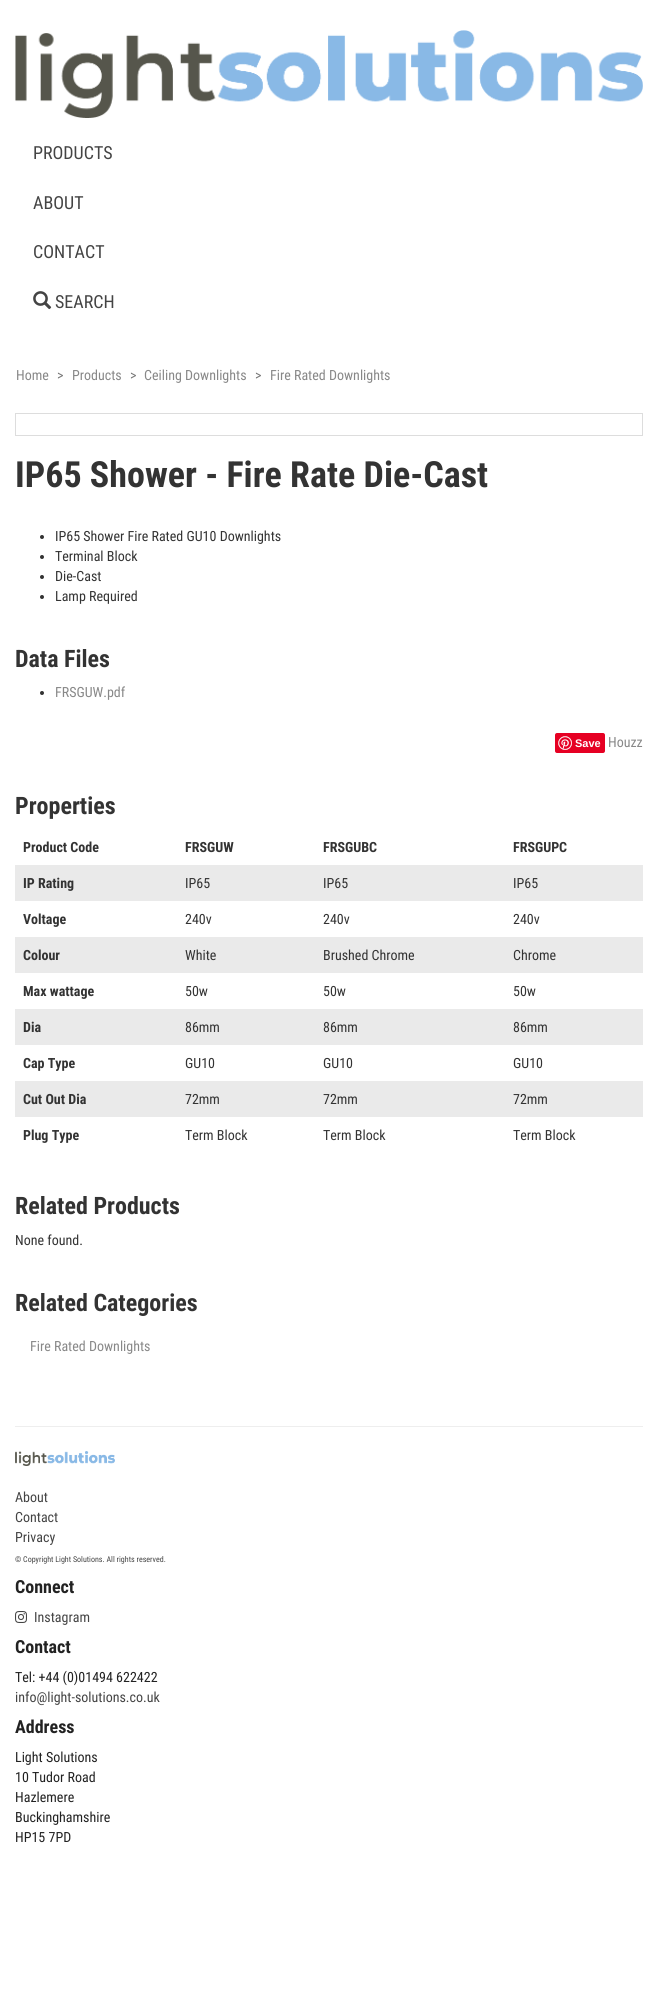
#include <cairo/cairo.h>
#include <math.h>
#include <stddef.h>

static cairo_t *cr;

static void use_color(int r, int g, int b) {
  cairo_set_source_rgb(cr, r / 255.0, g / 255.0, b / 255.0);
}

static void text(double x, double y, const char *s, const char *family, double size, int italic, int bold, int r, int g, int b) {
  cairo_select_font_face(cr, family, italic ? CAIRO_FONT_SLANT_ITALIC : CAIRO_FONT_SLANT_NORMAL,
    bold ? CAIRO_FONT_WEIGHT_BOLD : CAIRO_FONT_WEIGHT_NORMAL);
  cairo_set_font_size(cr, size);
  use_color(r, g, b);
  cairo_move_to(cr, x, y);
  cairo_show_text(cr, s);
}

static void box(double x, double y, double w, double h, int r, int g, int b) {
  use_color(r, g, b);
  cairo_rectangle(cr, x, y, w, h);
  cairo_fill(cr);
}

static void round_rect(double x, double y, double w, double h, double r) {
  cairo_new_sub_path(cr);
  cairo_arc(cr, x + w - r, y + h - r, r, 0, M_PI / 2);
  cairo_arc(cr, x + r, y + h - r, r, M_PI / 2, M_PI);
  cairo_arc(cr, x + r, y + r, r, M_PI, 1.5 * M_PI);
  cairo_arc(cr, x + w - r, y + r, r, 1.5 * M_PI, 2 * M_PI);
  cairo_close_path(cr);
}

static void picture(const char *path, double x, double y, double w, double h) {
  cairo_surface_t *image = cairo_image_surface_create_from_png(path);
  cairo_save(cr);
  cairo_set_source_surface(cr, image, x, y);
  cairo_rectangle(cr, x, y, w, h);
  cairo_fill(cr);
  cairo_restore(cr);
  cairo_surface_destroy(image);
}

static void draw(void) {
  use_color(255, 255, 255);
  cairo_paint(cr);
  picture("img_01.png", 15, 30, 628, 88);
  picture("img_02.png", 33, 291, 19, 19);
  cairo_rectangle(cr, 15.5, 413.5, 627, 22);
  use_color(221, 221, 221);
  cairo_set_line_width(cr, 1);
  cairo_stroke(cr);
  use_color(51, 51, 51);
  cairo_arc(cr, 42, 537, 2, 0, 2 * M_PI);
  cairo_fill(cr);
  cairo_arc(cr, 42, 557, 2, 0, 2 * M_PI);
  cairo_fill(cr);
  cairo_arc(cr, 42, 577, 2, 0, 2 * M_PI);
  cairo_fill(cr);
  cairo_arc(cr, 42, 597, 2, 0, 2 * M_PI);
  cairo_fill(cr);
  cairo_arc(cr, 42, 693, 2, 0, 2 * M_PI);
  cairo_fill(cr);
  use_color(230, 0, 35);
  round_rect(555, 733, 50, 20, 2);
  cairo_fill(cr);
  picture("img_03.png", 558, 736, 14, 14);
  box(15, 865, 628, 36, 234, 234, 234);
  box(15, 937, 628, 36, 234, 234, 234);
  box(15, 1009, 628, 36, 234, 234, 234);
  box(15, 1081, 628, 36, 234, 234, 234);
  box(15, 1426, 628, 1, 238, 238, 238);
  picture("img_04.png", 15, 1451, 100, 15);
  picture("img_05.png", 15, 1611, 12, 12);
  text(33, 159, "PRODUCTS", "Roboto Condensed", 18, 0, 0, 68, 68, 68);
  text(33, 209, "ABOUT", "Roboto Condensed", 18, 0, 0, 68, 68, 68);
  text(33, 258, "CONTACT", "Roboto Condensed", 18, 0, 0, 68, 68, 68);
  text(55, 308, "SEARCH", "Roboto Condensed", 18, 0, 0, 68, 68, 68);
  text(16, 380, "Home", "Roboto Condensed", 14, 0, 0, 136, 136, 136);
  text(57, 380, ">", "Roboto Condensed", 14, 0, 0, 119, 119, 119);
  text(72, 380, "Products", "Roboto Condensed", 14, 0, 0, 136, 136, 136);
  text(130, 380, ">", "Roboto Condensed", 14, 0, 0, 119, 119, 119);
  text(144, 380, "Ceiling Downlights", "Roboto Condensed", 14, 0, 0, 136, 136, 136);
  text(255, 380, ">", "Roboto Condensed", 14, 0, 0, 119, 119, 119);
  text(270, 380, "Fire Rated Downlights", "Roboto Condensed", 14, 0, 0, 136, 136, 136);
  text(15, 487, "IP65 Shower - Fire Rate Die-Cast", "Roboto Condensed", 36, 0, 1, 51, 51, 51);
  text(55, 541, "IP65 Shower Fire Rated GU10 Downlights", "Roboto Condensed", 14, 0, 0, 51, 51, 51);
  text(55, 561, "Terminal Block", "Roboto Condensed", 14, 0, 0, 51, 51, 51);
  text(55, 581, "Die-Cast", "Roboto Condensed", 14, 0, 0, 51, 51, 51);
  text(55, 601, "Lamp Required", "Roboto Condensed", 14, 0, 0, 51, 51, 51);
  text(15, 667, "Data Files", "Roboto Condensed", 24, 0, 1, 51, 51, 51);
  text(55, 697, "FRSGUW.pdf", "Roboto Condensed", 14, 0, 0, 136, 136, 136);
  text(575, 747, "Save", "Liberation Sans", 11, 0, 1, 255, 255, 255);
  text(608, 747, "Houzz", "Roboto Condensed", 14, 0, 0, 136, 136, 136);
  text(15, 814, "Properties", "Roboto Condensed", 24, 0, 1, 51, 51, 51);
  text(23, 852, "Product Code", "Roboto Condensed", 14, 0, 1, 51, 51, 51);
  text(185, 852, "FRSGUW", "Roboto Condensed", 14, 0, 1, 51, 51, 51);
  text(323, 852, "FRSGUBC", "Roboto Condensed", 14, 0, 1, 51, 51, 51);
  text(513, 852, "FRSGUPC", "Roboto Condensed", 14, 0, 1, 51, 51, 51);
  text(23, 888, "IP Rating", "Roboto Condensed", 14, 0, 1, 51, 51, 51);
  text(185, 888, "IP65", "Roboto Condensed", 14, 0, 0, 51, 51, 51);
  text(323, 888, "IP65", "Roboto Condensed", 14, 0, 0, 51, 51, 51);
  text(513, 888, "IP65", "Roboto Condensed", 14, 0, 0, 51, 51, 51);
  text(23, 924, "Voltage", "Roboto Condensed", 14, 0, 1, 51, 51, 51);
  text(185, 924, "240v", "Roboto Condensed", 14, 0, 0, 51, 51, 51);
  text(323, 924, "240v", "Roboto Condensed", 14, 0, 0, 51, 51, 51);
  text(513, 924, "240v", "Roboto Condensed", 14, 0, 0, 51, 51, 51);
  text(23, 960, "Colour", "Roboto Condensed", 14, 0, 1, 51, 51, 51);
  text(185, 960, "White", "Roboto Condensed", 14, 0, 0, 51, 51, 51);
  text(323, 960, "Brushed Chrome", "Roboto Condensed", 14, 0, 0, 51, 51, 51);
  text(513, 960, "Chrome", "Roboto Condensed", 14, 0, 0, 51, 51, 51);
  text(23, 996, "Max wattage", "Roboto Condensed", 14, 0, 1, 51, 51, 51);
  text(185, 996, "50w", "Roboto Condensed", 14, 0, 0, 51, 51, 51);
  text(323, 996, "50w", "Roboto Condensed", 14, 0, 0, 51, 51, 51);
  text(513, 996, "50w", "Roboto Condensed", 14, 0, 0, 51, 51, 51);
  text(23, 1032, "Dia", "Roboto Condensed", 14, 0, 1, 51, 51, 51);
  text(185, 1032, "86mm", "Roboto Condensed", 14, 0, 0, 51, 51, 51);
  text(323, 1032, "86mm", "Roboto Condensed", 14, 0, 0, 51, 51, 51);
  text(513, 1032, "86mm", "Roboto Condensed", 14, 0, 0, 51, 51, 51);
  text(23, 1068, "Cap Type", "Roboto Condensed", 14, 0, 1, 51, 51, 51);
  text(185, 1068, "GU10", "Roboto Condensed", 14, 0, 0, 51, 51, 51);
  text(323, 1068, "GU10", "Roboto Condensed", 14, 0, 0, 51, 51, 51);
  text(513, 1068, "GU10", "Roboto Condensed", 14, 0, 0, 51, 51, 51);
  text(23, 1104, "Cut Out Dia", "Roboto Condensed", 14, 0, 1, 51, 51, 51);
  text(185, 1104, "72mm", "Roboto Condensed", 14, 0, 0, 51, 51, 51);
  text(323, 1104, "72mm", "Roboto Condensed", 14, 0, 0, 51, 51, 51);
  text(513, 1104, "72mm", "Roboto Condensed", 14, 0, 0, 51, 51, 51);
  text(23, 1140, "Plug Type", "Roboto Condensed", 14, 0, 1, 51, 51, 51);
  text(185, 1140, "Term Block", "Roboto Condensed", 14, 0, 0, 51, 51, 51);
  text(323, 1140, "Term Block", "Roboto Condensed", 14, 0, 0, 51, 51, 51);
  text(513, 1140, "Term Block", "Roboto Condensed", 14, 0, 0, 51, 51, 51);
  text(15, 1214, "Related Products", "Roboto Condensed", 24, 0, 1, 51, 51, 51);
  text(15, 1245, "None found.", "Roboto Condensed", 14, 0, 0, 51, 51, 51);
  text(15, 1311, "Related Categories", "Roboto Condensed", 24, 0, 1, 51, 51, 51);
  text(30, 1351, "Fire Rated Downlights", "Roboto Condensed", 14, 0, 0, 136, 136, 136);
  text(15, 1502, "About", "Roboto Condensed", 14, 0, 0, 68, 68, 68);
  text(15, 1522, "Contact", "Roboto Condensed", 14, 0, 0, 68, 68, 68);
  text(15, 1542, "Privacy", "Roboto Condensed", 14, 0, 0, 68, 68, 68);
  text(15, 1562, "© Copyright Light Solutions. All rights reserved.", "Roboto Condensed", 8, 0, 0, 68, 68, 68);
  text(15, 1593, "Connect", "Roboto Condensed", 18, 0, 1, 34, 34, 34);
  text(34, 1622, "Instagram", "Roboto Condensed", 14, 0, 0, 68, 68, 68);
  text(15, 1653, "Contact", "Roboto Condensed", 18, 0, 1, 34, 34, 34);
  text(15, 1682, "Tel: +44 (0)01494 622422", "Roboto Condensed", 14, 0, 0, 34, 34, 34);
  text(15, 1702, "info@light-solutions.co.uk", "Roboto Condensed", 14, 0, 0, 68, 68, 68);
  text(15, 1733, "Address", "Roboto Condensed", 18, 0, 1, 34, 34, 34);
  text(15, 1762, "Light Solutions", "Roboto Condensed", 14, 0, 0, 34, 34, 34);
  text(15, 1782, "10 Tudor Road", "Roboto Condensed", 14, 0, 0, 34, 34, 34);
  text(15, 1802, "Hazlemere", "Roboto Condensed", 14, 0, 0, 34, 34, 34);
  text(15, 1822, "Buckinghamshire", "Roboto Condensed", 14, 0, 0, 34, 34, 34);
  text(15, 1842, "HP15 7PD", "Roboto Condensed", 14, 0, 0, 34, 34, 34);
}

int main(void) {
  cairo_surface_t *surface = cairo_image_surface_create(CAIRO_FORMAT_RGB24, 658, 2001);
  cr = cairo_create(surface);
  cairo_font_options_t *options = cairo_font_options_create();
  cairo_font_options_set_hint_metrics(options, CAIRO_HINT_METRICS_OFF);
  cairo_font_options_set_hint_style(options, CAIRO_HINT_STYLE_NONE);
  cairo_set_font_options(cr, options);
  cairo_set_miter_limit(cr, 4);
  draw();
  cairo_surface_write_to_png(surface, "out.png");
  cairo_font_options_destroy(options);
  cairo_destroy(cr);
  cairo_surface_destroy(surface);
  return 0;
}
